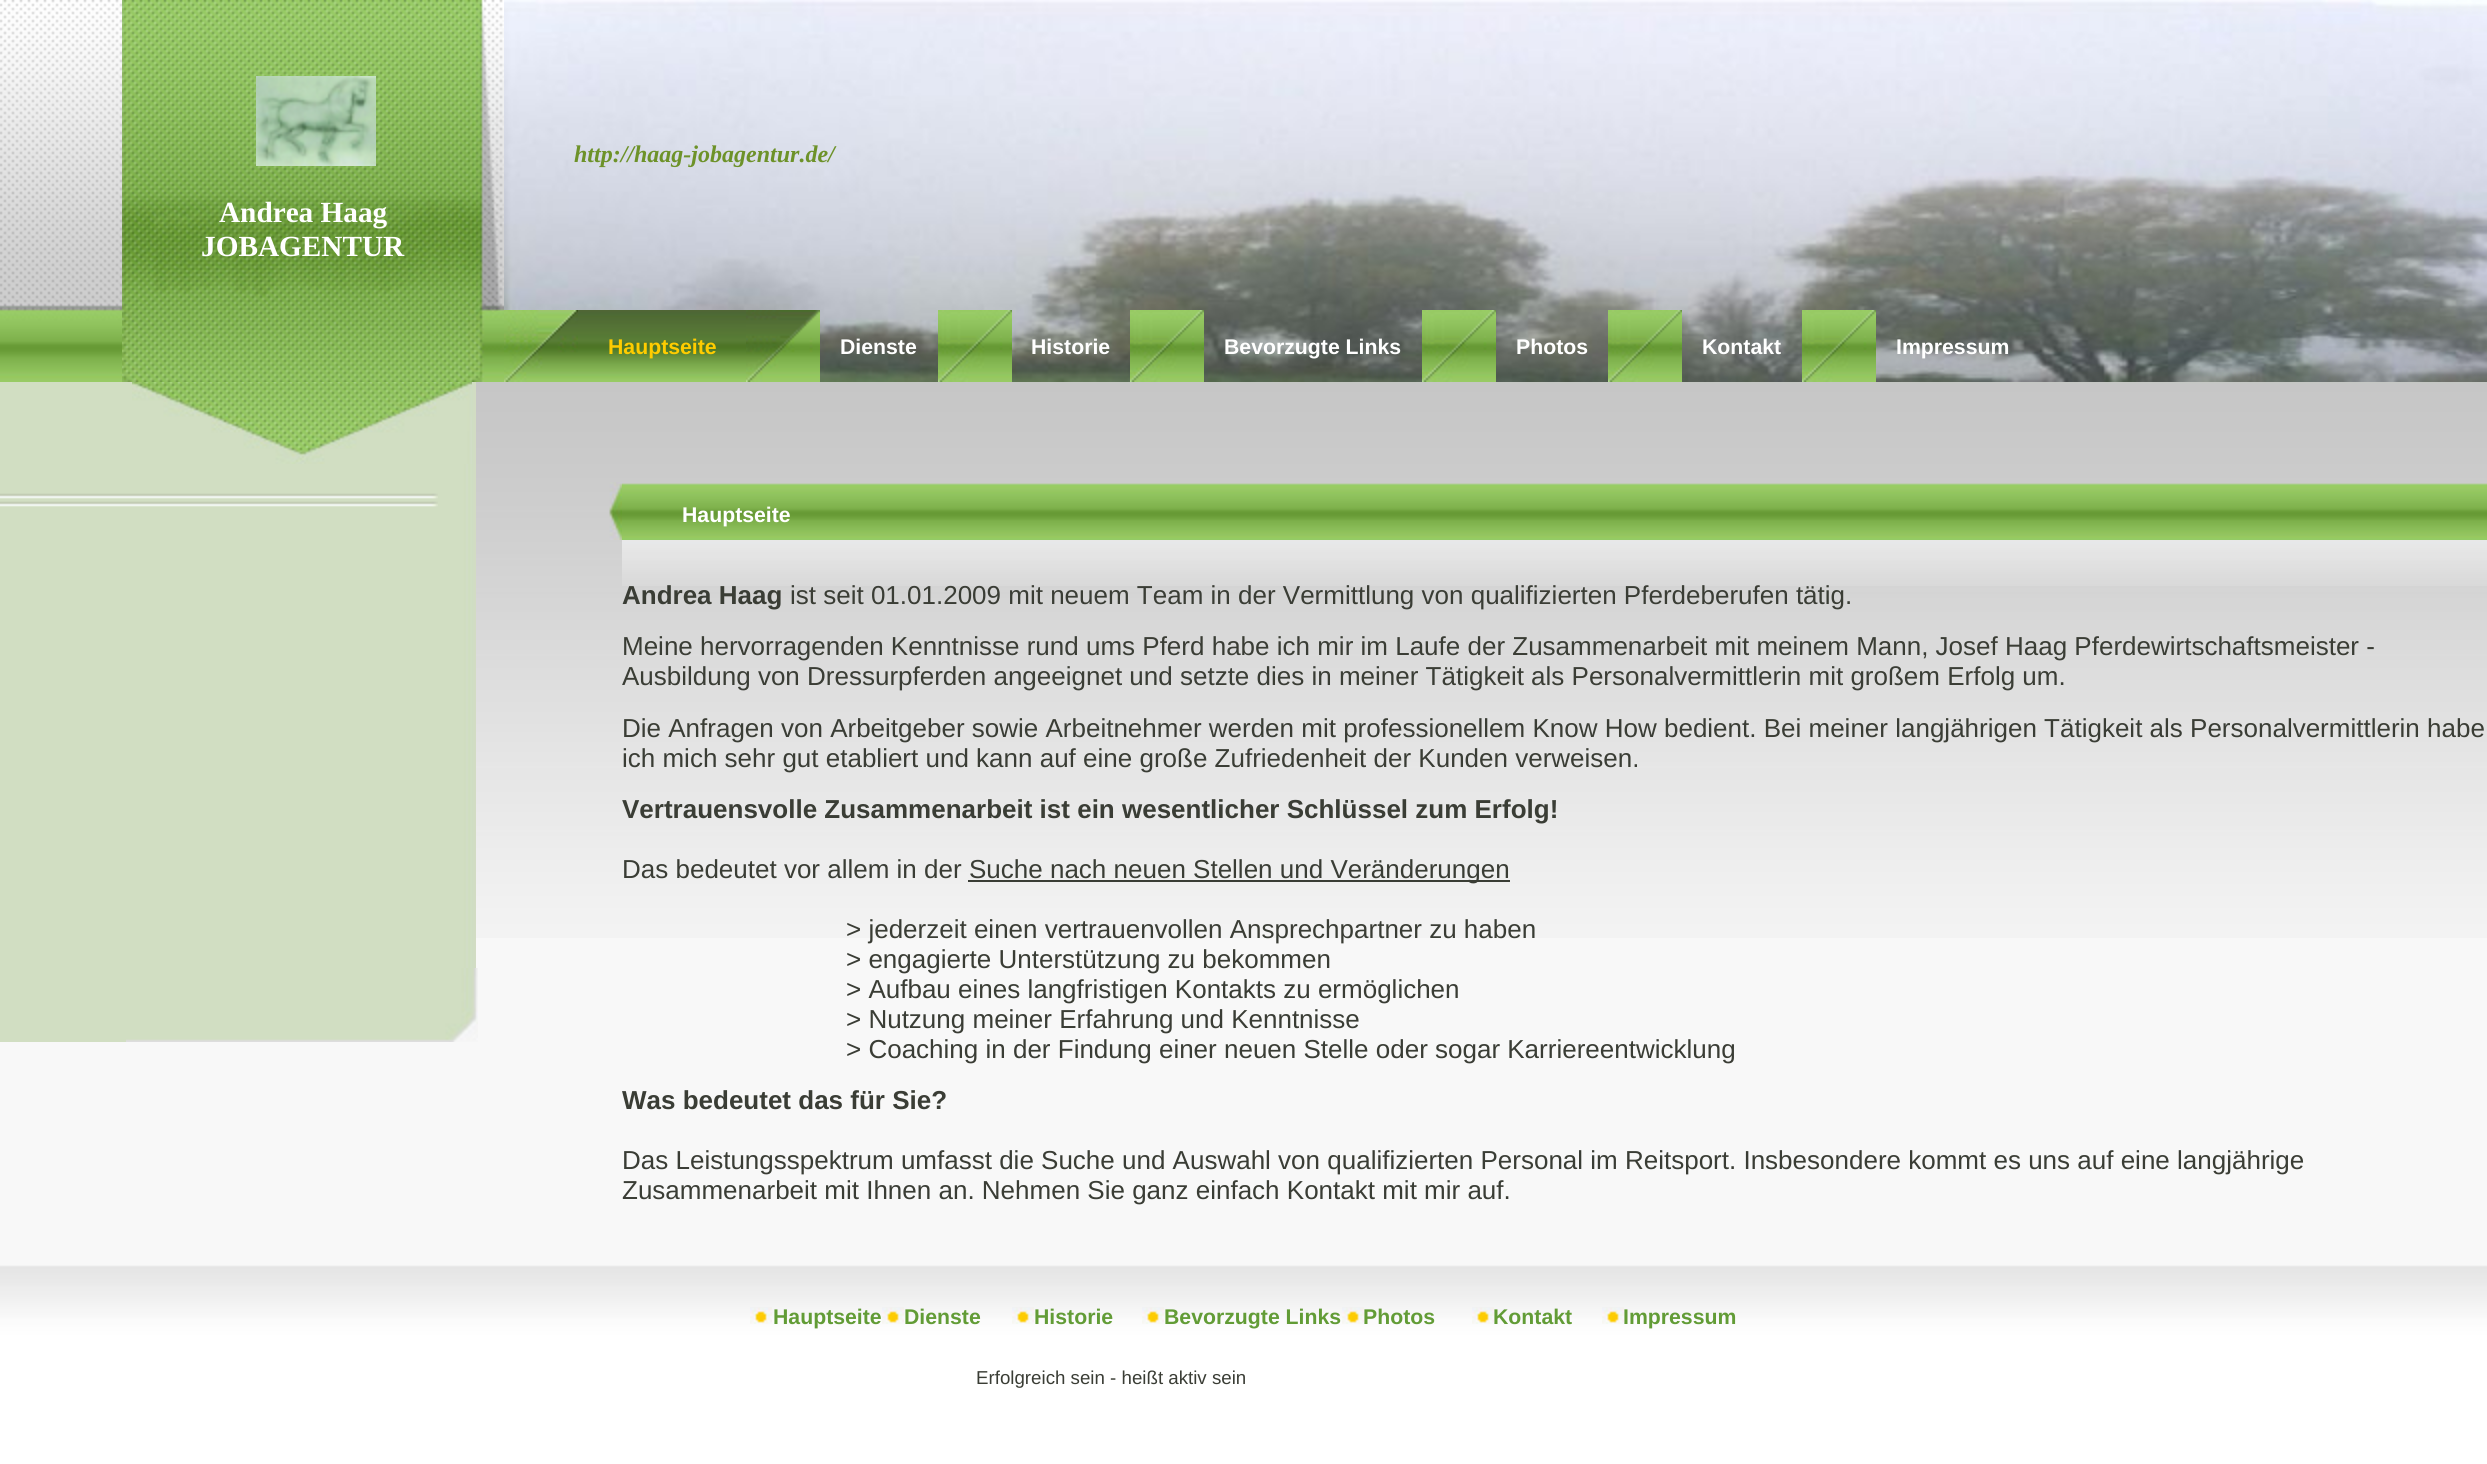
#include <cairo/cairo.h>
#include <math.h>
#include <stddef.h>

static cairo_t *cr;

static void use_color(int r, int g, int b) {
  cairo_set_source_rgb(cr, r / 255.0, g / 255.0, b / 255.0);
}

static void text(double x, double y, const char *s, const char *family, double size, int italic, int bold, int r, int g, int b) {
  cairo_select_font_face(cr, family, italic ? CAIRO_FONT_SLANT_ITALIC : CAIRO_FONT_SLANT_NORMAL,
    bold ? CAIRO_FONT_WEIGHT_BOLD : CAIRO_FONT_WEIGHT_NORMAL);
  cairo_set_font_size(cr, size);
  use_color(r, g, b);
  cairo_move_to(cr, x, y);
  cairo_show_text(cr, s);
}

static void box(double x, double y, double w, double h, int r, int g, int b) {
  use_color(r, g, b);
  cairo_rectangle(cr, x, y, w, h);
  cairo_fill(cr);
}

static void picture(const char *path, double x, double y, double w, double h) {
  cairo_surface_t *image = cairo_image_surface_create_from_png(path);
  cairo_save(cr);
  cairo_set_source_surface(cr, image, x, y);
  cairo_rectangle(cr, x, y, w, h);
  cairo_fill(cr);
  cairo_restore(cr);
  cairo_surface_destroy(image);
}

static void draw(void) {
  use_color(248, 248, 248);
  cairo_paint(cr);
  picture("img_01.png", 0, 0, 122, 382);
  picture("img_02.png", 122, 0, 382, 382);
  picture("img_03.png", 256, 76, 120, 90);
  picture("img_04.png", 504, 0, 1983, 382);
  picture("img_05.png", 504, 310, 74, 72);
  picture("img_06.png", 578, 310, 168, 72);
  picture("img_07.png", 746, 310, 74, 72);
  picture("img_08.png", 938, 310, 74, 72);
  picture("img_08.png", 1130, 310, 74, 72);
  picture("img_08.png", 1422, 310, 74, 72);
  picture("img_08.png", 1608, 310, 74, 72);
  picture("img_08.png", 1802, 310, 74, 72);
  picture("img_09.png", 476, 382, 2011, 556);
  picture("img_10.png", 0, 382, 476, 660);
  picture("img_11.png", 132, 382, 340, 82);
  picture("img_12.png", 0, 493, 438, 6);
  picture("img_12.png", 0, 501, 438, 6);
  picture("img_13.png", 126, 968, 352, 74);
  picture("img_14.png", 609, 482, 13, 58);
  picture("img_15.png", 622, 483, 1865, 57);
  picture("img_16.png", 622, 540, 1865, 46);
  box(968, 880, 542, 2, 58, 61, 53);
  picture("img_17.png", 0, 1265, 2487, 199);
  picture("img_18.png", 750, 1307, 22, 17);
  picture("img_18.png", 882, 1307, 22, 17);
  picture("img_18.png", 1012, 1307, 22, 17);
  picture("img_18.png", 1142, 1307, 22, 17);
  picture("img_18.png", 1342, 1307, 22, 17);
  picture("img_18.png", 1472, 1307, 22, 17);
  picture("img_18.png", 1602, 1307, 22, 17);
  text(219, 222, "Andrea Haag", "Liberation Serif", 29.25, 0, 1, 255, 255, 255);
  text(201, 256, "JOBAGENTUR", "Liberation Serif", 29.25, 0, 1, 255, 255, 255);
  text(574, 162, "http://haag-jobagentur.de/", "Liberation Serif", 24, 1, 1, 109, 146, 41);
  text(608, 354, "Hauptseite", "Liberation Sans", 21.25, 0, 1, 255, 204, 0);
  text(840, 354, "Dienste", "Liberation Sans", 21.25, 0, 1, 255, 255, 255);
  text(1031, 354, "Historie", "Liberation Sans", 21.25, 0, 1, 255, 255, 255);
  text(1224, 354, "Bevorzugte Links", "Liberation Sans", 21.25, 0, 1, 255, 255, 255);
  text(1516, 354, "Photos", "Liberation Sans", 21.25, 0, 1, 255, 255, 255);
  text(1702, 354, "Kontakt", "Liberation Sans", 21.25, 0, 1, 255, 255, 255);
  text(1896, 354, "Impressum", "Liberation Sans", 21.25, 0, 1, 255, 255, 255);
  text(682, 522, "Hauptseite", "Liberation Sans", 21.25, 0, 1, 255, 255, 255);
  text(622, 604, "Andrea Haag", "Liberation Sans", 26, 0, 1, 58, 61, 53);
  text(790, 604, "ist seit 01.01.2009 mit neuem Team in der Vermittlung von qualifizierten Pferdeberufen tätig.", "Liberation Sans", 26, 0, 0, 58, 61, 53);
  text(622, 655, "Meine hervorragenden Kenntnisse rund ums Pferd habe ich mir im Laufe der Zusammenarbeit mit meinem Mann, Josef Haag Pferdewirtschaftsmeister -", "Liberation Sans", 26, 0, 0, 58, 61, 53);
  text(622, 685, "Ausbildung von Dressurpferden angeeignet und setzte dies in meiner Tätigkeit als Personalvermittlerin mit großem Erfolg um.", "Liberation Sans", 26, 0, 0, 58, 61, 53);
  text(622, 737, "Die Anfragen von Arbeitgeber sowie Arbeitnehmer werden mit professionellem Know How bedient. Bei meiner langjährigen Tätigkeit als Personalvermittlerin habe", "Liberation Sans", 26, 0, 0, 58, 61, 53);
  text(622, 767, "ich mich sehr gut etabliert und kann auf eine große Zufriedenheit der Kunden verweisen.", "Liberation Sans", 26, 0, 0, 58, 61, 53);
  text(622, 818, "Vertrauensvolle Zusammenarbeit ist ein wesentlicher Schlüssel zum Erfolg!", "Liberation Sans", 26, 0, 1, 58, 61, 53);
  text(622, 878, "Das bedeutet vor allem in der", "Liberation Sans", 26, 0, 0, 58, 61, 53);
  text(969, 878, "Suche nach neuen Stellen und Veränderungen", "Liberation Sans", 26, 0, 0, 58, 61, 53);
  text(846, 938, "> jederzeit einen vertrauenvollen Ansprechpartner zu haben", "Liberation Sans", 26, 0, 0, 58, 61, 53);
  text(846, 968, "> engagierte Unterstützung zu bekommen", "Liberation Sans", 26, 0, 0, 58, 61, 53);
  text(846, 998, "> Aufbau eines langfristigen Kontakts zu ermöglichen", "Liberation Sans", 26, 0, 0, 58, 61, 53);
  text(846, 1028, "> Nutzung meiner Erfahrung und Kenntnisse", "Liberation Sans", 26, 0, 0, 58, 61, 53);
  text(846, 1058, "> Coaching in der Findung einer neuen Stelle oder sogar Karriereentwicklung", "Liberation Sans", 26, 0, 0, 58, 61, 53);
  text(622, 1109, "Was bedeutet das für Sie?", "Liberation Sans", 26, 0, 1, 58, 61, 53);
  text(622, 1169, "Das Leistungsspektrum umfasst die Suche und Auswahl von qualifizierten Personal im Reitsport. Insbesondere kommt es uns auf eine langjährige", "Liberation Sans", 26, 0, 0, 58, 61, 53);
  text(622, 1199, "Zusammenarbeit mit Ihnen an. Nehmen Sie ganz einfach Kontakt mit mir auf.", "Liberation Sans", 26, 0, 0, 58, 61, 53);
  text(773, 1324, "Hauptseite", "Liberation Sans", 21.25, 0, 1, 98, 156, 54);
  text(904, 1324, "Dienste", "Liberation Sans", 21.25, 0, 1, 98, 156, 54);
  text(1034, 1324, "Historie", "Liberation Sans", 21.25, 0, 1, 98, 156, 54);
  text(1164, 1324, "Bevorzugte Links", "Liberation Sans", 21.25, 0, 1, 98, 156, 54);
  text(1363, 1324, "Photos", "Liberation Sans", 21.25, 0, 1, 98, 156, 54);
  text(1493, 1324, "Kontakt", "Liberation Sans", 21.25, 0, 1, 98, 156, 54);
  text(1623, 1324, "Impressum", "Liberation Sans", 21.25, 0, 1, 98, 156, 54);
  text(976, 1384, "Erfolgreich sein - heißt aktiv sein", "Liberation Sans", 18.7, 0, 0, 58, 61, 53);
}

int main(void) {
  cairo_surface_t *surface = cairo_image_surface_create(CAIRO_FORMAT_RGB24, 2487, 1464);
  cr = cairo_create(surface);
  cairo_font_options_t *options = cairo_font_options_create();
  cairo_font_options_set_hint_metrics(options, CAIRO_HINT_METRICS_OFF);
  cairo_font_options_set_hint_style(options, CAIRO_HINT_STYLE_NONE);
  cairo_set_font_options(cr, options);
  cairo_set_miter_limit(cr, 4);
  draw();
  cairo_surface_write_to_png(surface, "out.png");
  cairo_font_options_destroy(options);
  cairo_destroy(cr);
  cairo_surface_destroy(surface);
  return 0;
}
